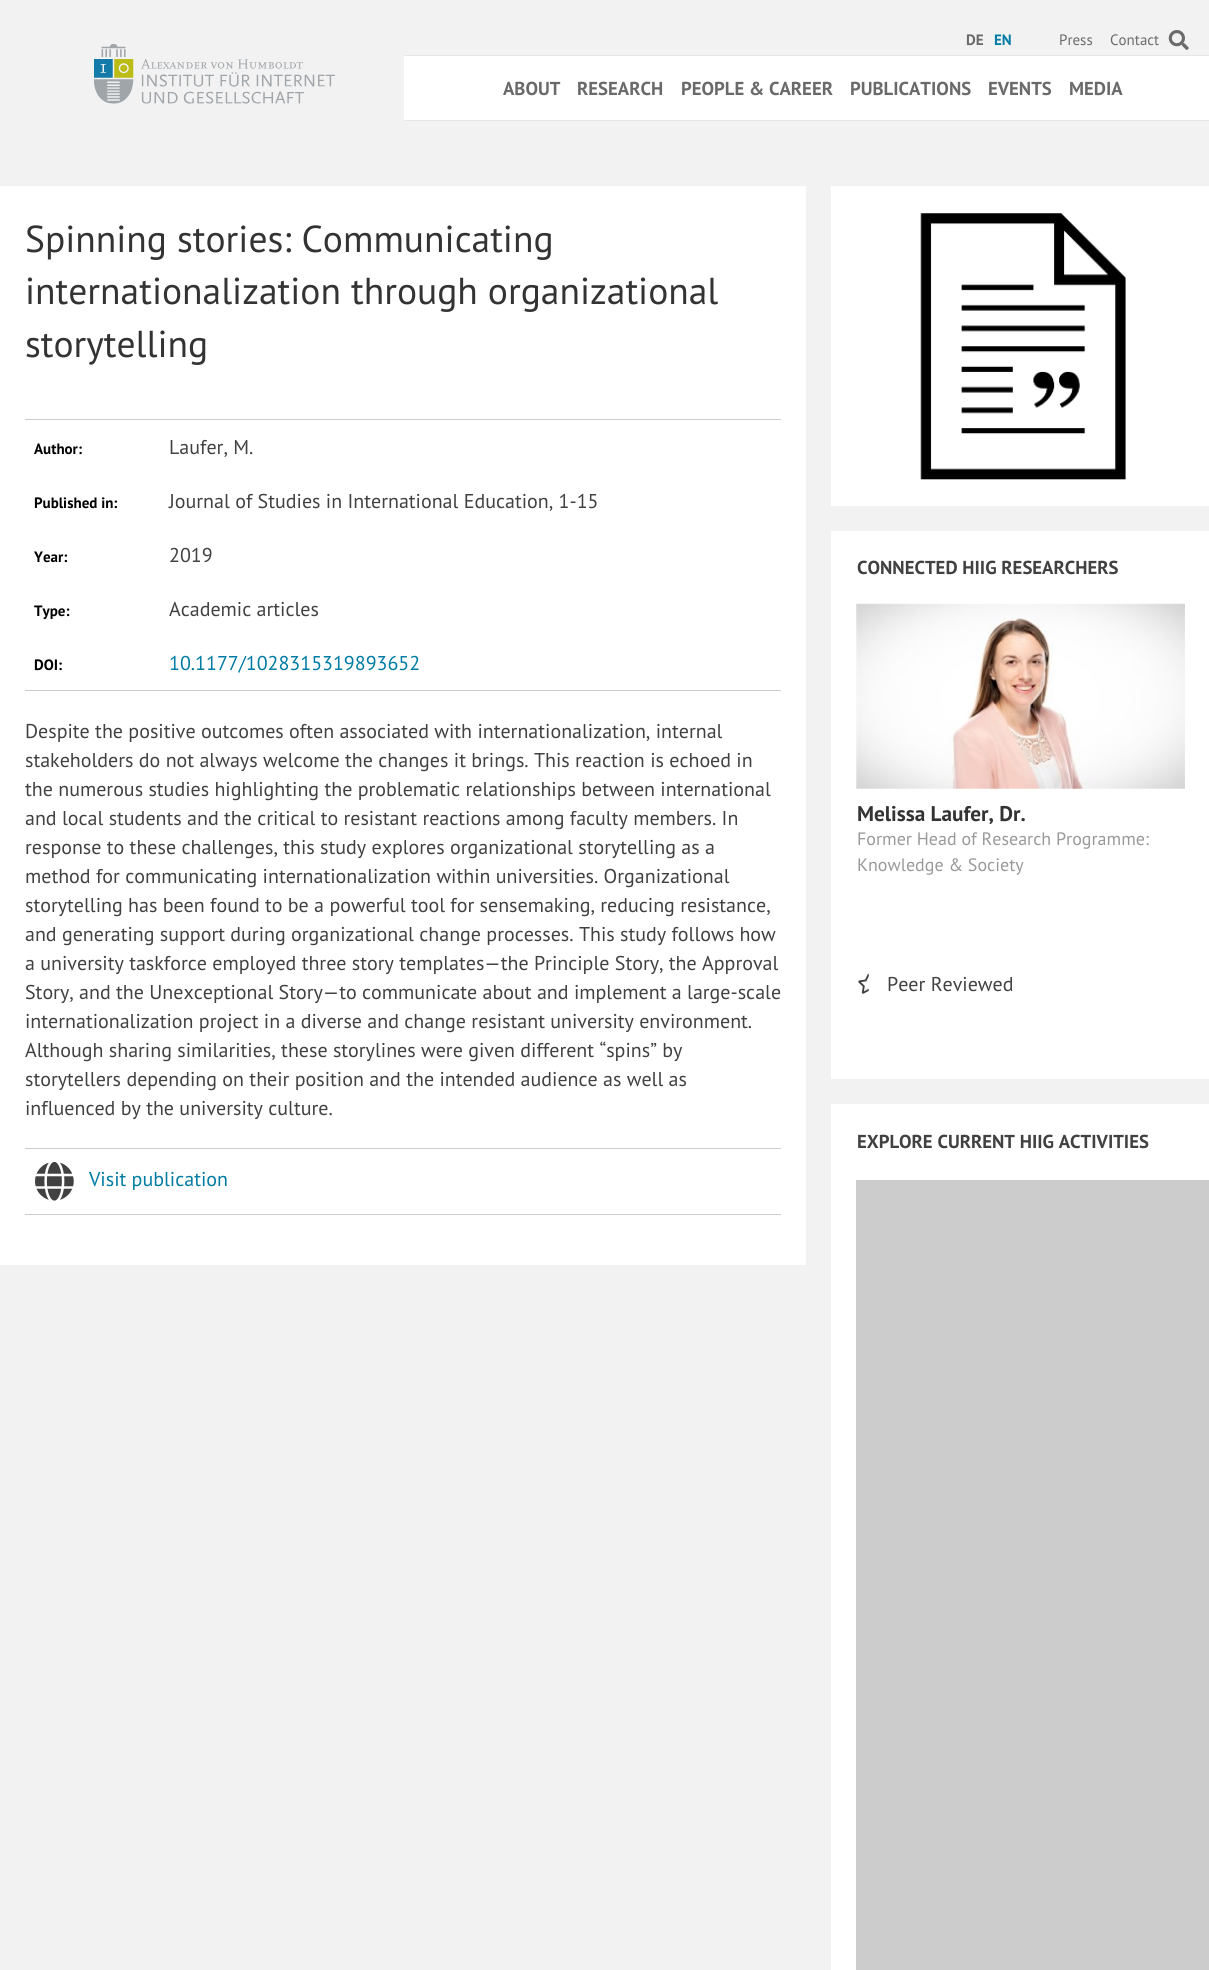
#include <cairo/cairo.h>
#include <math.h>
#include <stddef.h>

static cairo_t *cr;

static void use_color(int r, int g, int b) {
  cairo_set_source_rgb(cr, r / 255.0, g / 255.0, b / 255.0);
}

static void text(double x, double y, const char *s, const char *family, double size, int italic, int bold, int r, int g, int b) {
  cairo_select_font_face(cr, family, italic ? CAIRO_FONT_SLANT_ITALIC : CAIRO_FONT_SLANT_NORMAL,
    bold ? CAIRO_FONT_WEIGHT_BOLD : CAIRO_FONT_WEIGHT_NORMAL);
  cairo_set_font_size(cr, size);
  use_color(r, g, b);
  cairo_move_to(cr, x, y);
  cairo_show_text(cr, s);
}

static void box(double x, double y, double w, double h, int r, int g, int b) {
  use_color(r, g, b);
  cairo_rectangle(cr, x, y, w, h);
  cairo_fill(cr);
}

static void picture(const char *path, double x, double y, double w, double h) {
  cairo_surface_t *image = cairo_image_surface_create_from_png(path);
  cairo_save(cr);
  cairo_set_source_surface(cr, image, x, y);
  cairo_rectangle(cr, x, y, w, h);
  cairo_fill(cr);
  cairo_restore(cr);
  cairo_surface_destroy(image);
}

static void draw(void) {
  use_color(242, 242, 242);
  cairo_paint(cr);
  picture("img_01.png", 94, 44, 241, 60);
  picture("img_02.png", 1168, 30, 21, 20);
  box(404, 56, 805, 64, 255, 255, 255);
  box(404, 55, 805, 1, 230, 230, 230);
  box(404, 120, 805, 1, 230, 230, 230);
  box(0, 186, 806, 1079, 255, 255, 255);
  box(25, 419, 756, 1, 204, 204, 204);
  box(25, 690, 756, 1, 204, 204, 204);
  box(25, 1148, 756, 1, 204, 204, 204);
  box(25, 1214, 756, 1, 204, 204, 204);
  picture("img_03.png", 35, 1161, 39, 40);
  box(831, 186, 378, 320, 255, 255, 255);
  picture("img_04.png", 920, 213, 206, 267);
  box(831, 531, 378, 548, 255, 255, 255);
  picture("img_05.png", 856, 603, 329, 186);
  picture("img_06.png", 858, 973, 11, 21);
  box(831, 1104, 378, 866, 255, 255, 255);
  box(856, 1180, 353, 790, 204, 204, 204);
  text(966, 45, "DE", "PT Sans", 15, 0, 1, 106, 106, 106);
  text(994, 45, "EN", "PT Sans", 15, 0, 1, 0, 123, 163);
  text(1059, 45, "Press", "PT Sans", 15, 0, 0, 106, 106, 106);
  text(1110, 45, "Contact", "PT Sans", 15, 0, 0, 106, 106, 106);
  text(503, 95, "ABOUT", "PT Sans", 18.75, 0, 1, 106, 106, 106);
  text(577, 95, "RESEARCH", "PT Sans", 18.75, 0, 1, 106, 106, 106);
  text(681, 95, "PEOPLE & CAREER", "PT Sans", 18.75, 0, 1, 106, 106, 106);
  text(850, 95, "PUBLICATIONS", "PT Sans", 18.75, 0, 1, 106, 106, 106);
  text(988, 95, "EVENTS", "PT Sans", 18.75, 0, 1, 106, 106, 106);
  text(1069, 95, "MEDIA", "PT Sans", 18.75, 0, 1, 106, 106, 106);
  text(25, 252, "Spinning stories: Communicating", "PT Sans", 37.5, 0, 0, 51, 51, 51);
  text(25, 304, "internationalization through organizational", "PT Sans", 37.5, 0, 0, 51, 51, 51);
  text(25, 357, "storytelling", "PT Sans", 37.5, 0, 0, 51, 51, 51);
  text(34, 454, "Author:", "PT Sans", 15, 0, 1, 0, 0, 0);
  text(169, 454, "Laufer, M.", "PT Sans", 20, 0, 0, 65, 65, 65);
  text(34, 508, "Published in:", "PT Sans", 15, 0, 1, 0, 0, 0);
  text(169, 508, "Journal of Studies in International Education, 1-15", "PT Sans", 20, 0, 0, 65, 65, 65);
  text(34, 562, "Year:", "PT Sans", 15, 0, 1, 0, 0, 0);
  text(169, 562, "2019", "PT Sans", 20, 0, 0, 65, 65, 65);
  text(34, 616, "Type:", "PT Sans", 15, 0, 1, 0, 0, 0);
  text(169, 616, "Academic articles", "PT Sans", 20, 0, 0, 65, 65, 65);
  text(34, 670, "DOI:", "PT Sans", 15, 0, 1, 0, 0, 0);
  text(169, 670, "10.1177/1028315319893652", "PT Sans", 20, 0, 0, 0, 123, 163);
  text(25, 738, "Despite the positive outcomes often associated with internationalization, internal", "PT Sans", 20, 0, 0, 65, 65, 65);
  text(25, 767, "stakeholders do not always welcome the changes it brings. This reaction is echoed in", "PT Sans", 20, 0, 0, 65, 65, 65);
  text(25, 796, "the numerous studies highlighting the problematic relationships between international", "PT Sans", 20, 0, 0, 65, 65, 65);
  text(25, 825, "and local students and the critical to resistant reactions among faculty members. In", "PT Sans", 20, 0, 0, 65, 65, 65);
  text(25, 854, "response to these challenges, this study explores organizational storytelling as a", "PT Sans", 20, 0, 0, 65, 65, 65);
  text(25, 883, "method for communicating internationalization within universities. Organizational", "PT Sans", 20, 0, 0, 65, 65, 65);
  text(25, 912, "storytelling has been found to be a powerful tool for sensemaking, reducing resistance,", "PT Sans", 20, 0, 0, 65, 65, 65);
  text(25, 941, "and generating support during organizational change processes. This study follows how", "PT Sans", 20, 0, 0, 65, 65, 65);
  text(25, 970, "a university taskforce employed three story templates—the Principle Story, the Approval", "PT Sans", 20, 0, 0, 65, 65, 65);
  text(25, 999, "Story, and the Unexceptional Story—to communicate about and implement a large-scale", "PT Sans", 20, 0, 0, 65, 65, 65);
  text(25, 1028, "internationalization project in a diverse and change resistant university environment.", "PT Sans", 20, 0, 0, 65, 65, 65);
  text(25, 1057, "Although sharing similarities, these storylines were given different “spins” by", "PT Sans", 20, 0, 0, 65, 65, 65);
  text(25, 1086, "storytellers depending on their position and the intended audience as well as", "PT Sans", 20, 0, 0, 65, 65, 65);
  text(25, 1115, "influenced by the university culture.", "PT Sans", 20, 0, 0, 65, 65, 65);
  text(89, 1186, "Visit publication", "PT Sans", 20, 0, 0, 0, 123, 163);
  text(857, 574, "CONNECTED HIIG RESEARCHERS", "PT Sans", 18.75, 0, 1, 65, 65, 65);
  text(857, 821, "Melissa Laufer, Dr.", "PT Sans", 21.25, 0, 1, 51, 51, 51);
  text(857, 845, "Former Head of Research Programme:", "PT Sans", 18, 0, 0, 153, 153, 153);
  text(857, 871, "Knowledge & Society", "PT Sans", 18, 0, 0, 153, 153, 153);
  text(887, 991, "Peer Reviewed", "PT Sans", 20, 0, 0, 65, 65, 65);
  text(857, 1148, "EXPLORE CURRENT HIIG ACTIVITIES", "PT Sans", 18.75, 0, 1, 65, 65, 65);
}

int main(void) {
  cairo_surface_t *surface = cairo_image_surface_create(CAIRO_FORMAT_RGB24, 1209, 1970);
  cr = cairo_create(surface);
  cairo_font_options_t *options = cairo_font_options_create();
  cairo_font_options_set_hint_metrics(options, CAIRO_HINT_METRICS_OFF);
  cairo_font_options_set_hint_style(options, CAIRO_HINT_STYLE_NONE);
  cairo_set_font_options(cr, options);
  cairo_set_miter_limit(cr, 4);
  draw();
  cairo_surface_write_to_png(surface, "out.png");
  cairo_font_options_destroy(options);
  cairo_destroy(cr);
  cairo_surface_destroy(surface);
  return 0;
}
